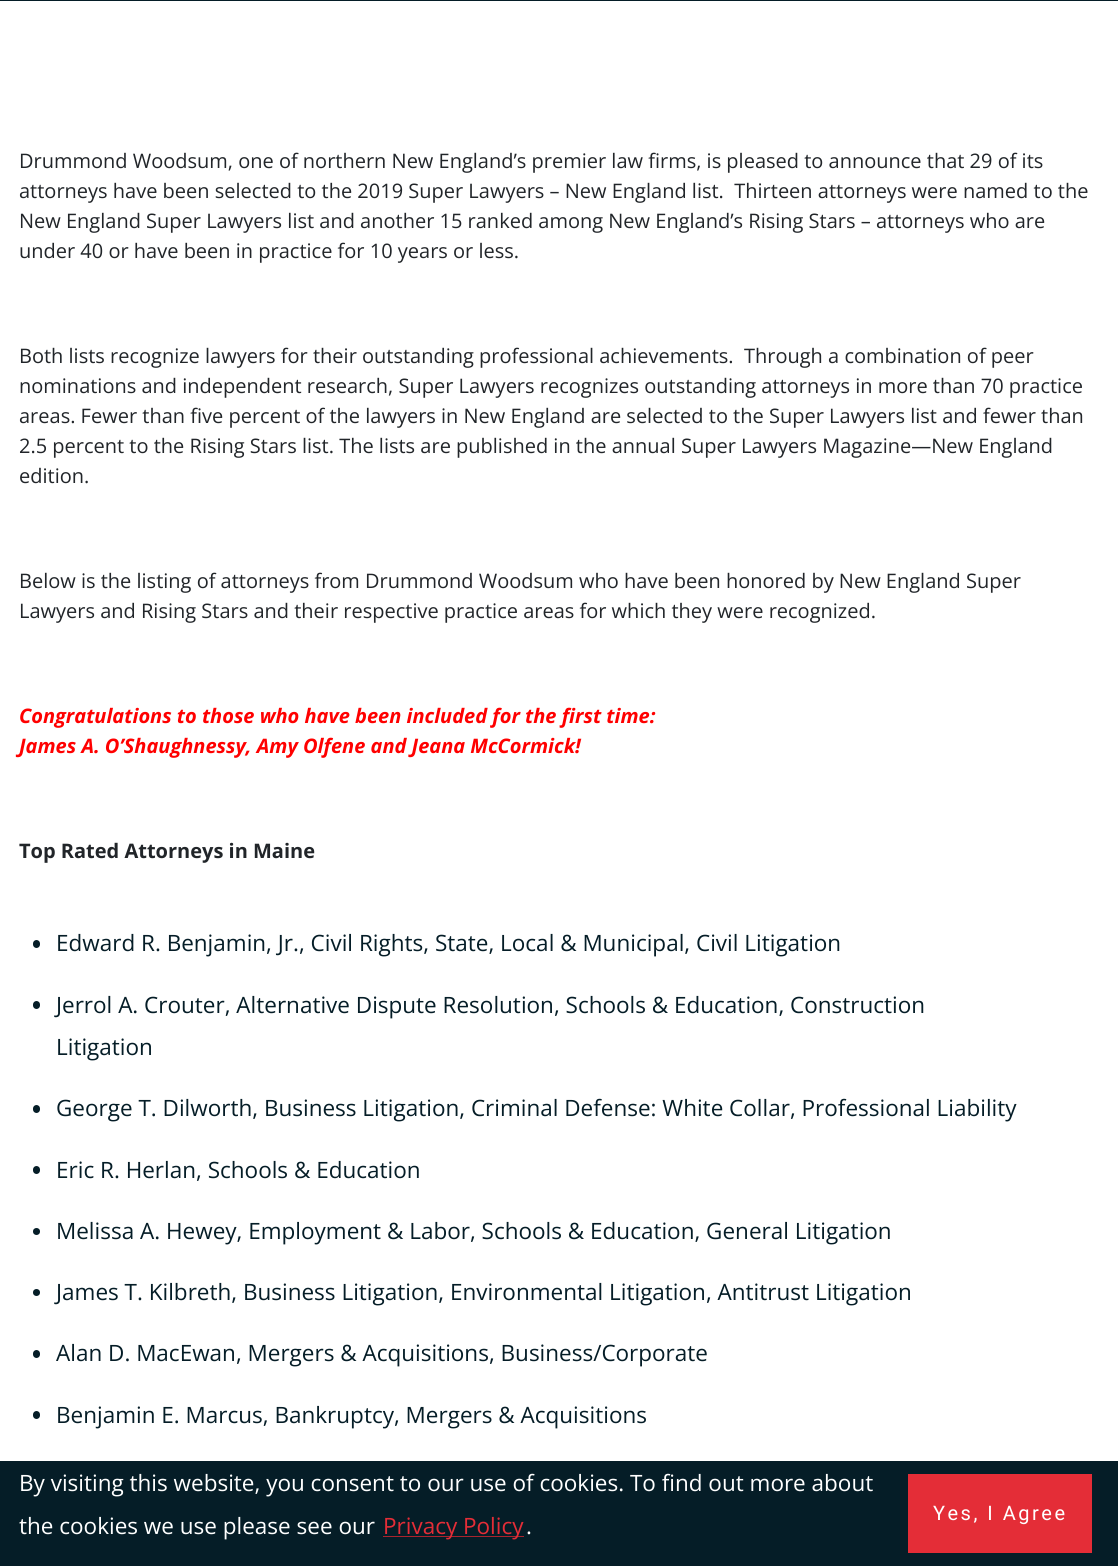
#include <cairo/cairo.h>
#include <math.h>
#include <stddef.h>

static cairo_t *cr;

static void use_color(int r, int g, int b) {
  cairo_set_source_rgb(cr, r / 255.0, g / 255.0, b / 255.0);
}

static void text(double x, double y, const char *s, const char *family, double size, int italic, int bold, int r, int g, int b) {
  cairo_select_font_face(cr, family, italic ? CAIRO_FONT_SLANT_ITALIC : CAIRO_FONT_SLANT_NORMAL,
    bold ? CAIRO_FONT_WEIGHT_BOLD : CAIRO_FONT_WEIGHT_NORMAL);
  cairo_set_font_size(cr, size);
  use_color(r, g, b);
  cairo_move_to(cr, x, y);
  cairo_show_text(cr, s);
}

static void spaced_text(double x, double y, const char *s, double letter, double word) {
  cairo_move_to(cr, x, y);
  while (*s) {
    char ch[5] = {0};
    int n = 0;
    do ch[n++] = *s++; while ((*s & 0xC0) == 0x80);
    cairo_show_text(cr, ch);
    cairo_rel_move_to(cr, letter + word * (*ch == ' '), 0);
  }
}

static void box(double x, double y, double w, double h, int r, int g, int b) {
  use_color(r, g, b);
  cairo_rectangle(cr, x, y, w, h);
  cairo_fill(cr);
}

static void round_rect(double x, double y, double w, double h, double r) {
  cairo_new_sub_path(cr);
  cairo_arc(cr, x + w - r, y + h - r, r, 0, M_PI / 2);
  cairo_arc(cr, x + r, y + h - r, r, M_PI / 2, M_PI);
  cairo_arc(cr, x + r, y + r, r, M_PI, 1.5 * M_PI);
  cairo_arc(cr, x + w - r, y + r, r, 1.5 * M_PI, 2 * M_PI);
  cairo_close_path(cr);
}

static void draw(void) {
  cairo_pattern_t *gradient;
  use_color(255, 255, 255);
  cairo_paint(cr);
  box(0, 0, 1118, 1, 5, 29, 39);
  round_rect(33, 940, 7, 8, 3.5);
  cairo_fill(cr);
  round_rect(33, 1001, 7, 8, 3.5);
  cairo_fill(cr);
  round_rect(33, 1105, 7, 8, 3.5);
  cairo_fill(cr);
  round_rect(33, 1166, 7, 8, 3.5);
  cairo_fill(cr);
  cairo_arc(cr, 36.5, 1231.5, 3.5, 0, 2 * M_PI);
  cairo_fill(cr);
  cairo_arc(cr, 36.5, 1292.5, 3.5, 0, 2 * M_PI);
  cairo_fill(cr);
  round_rect(33, 1350, 7, 8, 3.5);
  cairo_fill(cr);
  round_rect(33, 1411, 7, 8, 3.5);
  cairo_fill(cr);
  box(0, 1461, 1118, 105, 5, 29, 39);
  gradient = cairo_pattern_create_linear(453, 1540, 453, 1415);
  cairo_pattern_add_color_stop_rgba(gradient, 0.02, 0.02, 0.114, 0.153, 1);
  cairo_pattern_add_color_stop_rgba(gradient, 0.03, 0.824, 0.149, 0.188, 1);
  cairo_pattern_add_color_stop_rgba(gradient, 0.03, 0.02, 0.114, 0.153, 1);
  cairo_pattern_add_color_stop_rgba(gradient, 1, 0.02, 0.114, 0.153, 1);
  cairo_set_source(cr, gradient);
  cairo_pattern_destroy(gradient);
  cairo_rectangle(cr, 383, 1536, 141, 1);
  cairo_fill(cr);
  box(908, 1474, 184, 79, 228, 45, 55);
  text(19, 168, "Drummond Woodsum, one of northern New England’s premier law firms, is pleased to announce that 29 of its", "Open Sans", 20, 0, 0, 33, 37, 41);
  text(19, 198, "attorneys have been selected to the 2019 Super Lawyers – New England list.  Thirteen attorneys were named to the", "Open Sans", 20, 0, 0, 33, 37, 41);
  text(19, 228, "New England Super Lawyers list and another 15 ranked among New England’s Rising Stars – attorneys who are", "Open Sans", 20, 0, 0, 33, 37, 41);
  text(19, 258, "under 40 or have been in practice for 10 years or less.", "Open Sans", 20, 0, 0, 33, 37, 41);
  text(19, 363, "Both lists recognize lawyers for their outstanding professional achievements.  Through a combination of peer", "Open Sans", 20, 0, 0, 33, 37, 41);
  text(19, 393, "nominations and independent research, Super Lawyers recognizes outstanding attorneys in more than 70 practice", "Open Sans", 20, 0, 0, 33, 37, 41);
  text(19, 423, "areas. Fewer than five percent of the lawyers in New England are selected to the Super Lawyers list and fewer than", "Open Sans", 20, 0, 0, 33, 37, 41);
  text(19, 453, "2.5 percent to the Rising Stars list. The lists are published in the annual Super Lawyers Magazine—New England", "Open Sans", 20, 0, 0, 33, 37, 41);
  text(19, 483, "edition.", "Open Sans", 20, 0, 0, 33, 37, 41);
  text(19, 588, "Below is the listing of attorneys from Drummond Woodsum who have been honored by New England Super", "Open Sans", 20, 0, 0, 33, 37, 41);
  text(19, 618, "Lawyers and Rising Stars and their respective practice areas for which they were recognized.", "Open Sans", 20, 0, 0, 33, 37, 41);
  text(19, 723, "Congratulations to those who have been included for the first time:", "Open Sans", 20, 1, 1, 255, 0, 0);
  text(19, 753, "James A. O’Shaughnessy, Amy Olfene and Jeana McCormick!", "Open Sans", 20, 1, 1, 255, 0, 0);
  text(19, 858, "Top Rated Attorneys in Maine", "Open Sans", 20, 0, 1, 33, 37, 41);
  text(56, 951, "Edward R. Benjamin, Jr., Civil Rights, State, Local & Municipal, Civil Litigation", "Open Sans", 22.5, 0, 0, 5, 29, 39);
  text(56, 1013, "Jerrol A. Crouter, Alternative Dispute Resolution, Schools & Education, Construction", "Open Sans", 22.5, 0, 0, 5, 29, 39);
  text(56, 1055, "Litigation", "Open Sans", 22.5, 0, 0, 5, 29, 39);
  text(56, 1116, "George T. Dilworth, Business Litigation, Criminal Defense: White Collar, Professional Liability", "Open Sans", 22.5, 0, 0, 5, 29, 39);
  text(56, 1178, "Eric R. Herlan, Schools & Education", "Open Sans", 22.5, 0, 0, 5, 29, 39);
  text(56, 1239, "Melissa A. Hewey, Employment & Labor, Schools & Education, General Litigation", "Open Sans", 22.5, 0, 0, 5, 29, 39);
  text(56, 1300, "James T. Kilbreth, Business Litigation, Environmental Litigation, Antitrust Litigation", "Open Sans", 22.5, 0, 0, 5, 29, 39);
  text(56, 1361, "Alan D. MacEwan, Mergers & Acquisitions, Business/Corporate", "Open Sans", 22.5, 0, 0, 5, 29, 39);
  text(56, 1423, "Benjamin E. Marcus, Bankruptcy, Mergers & Acquisitions", "Open Sans", 22.5, 0, 0, 5, 29, 39);
  text(19, 1491, "By visiting this website, you consent to our use of cookies. To find out more about", "Open Sans", 22.5, 0, 0, 255, 255, 255);
  text(19, 1534, "the cookies we use please see our", "Open Sans", 22.5, 0, 0, 255, 255, 255);
  text(383, 1534, "Privacy Policy", "Open Sans", 22.5, 0, 0, 228, 45, 55);
  text(526, 1534, ".", "Open Sans", 22.5, 0, 0, 255, 255, 255);
  cairo_select_font_face(cr, "Roboto", CAIRO_FONT_SLANT_NORMAL, CAIRO_FONT_WEIGHT_NORMAL);
  cairo_set_font_size(cr, 20);
  spaced_text(933, 1520, "Yes, I Agree", 2.5, 0);
}

int main(void) {
  cairo_surface_t *surface = cairo_image_surface_create(CAIRO_FORMAT_RGB24, 1118, 1566);
  cr = cairo_create(surface);
  cairo_font_options_t *options = cairo_font_options_create();
  cairo_font_options_set_hint_metrics(options, CAIRO_HINT_METRICS_OFF);
  cairo_font_options_set_hint_style(options, CAIRO_HINT_STYLE_NONE);
  cairo_set_font_options(cr, options);
  cairo_set_miter_limit(cr, 4);
  draw();
  cairo_surface_write_to_png(surface, "out.png");
  cairo_font_options_destroy(options);
  cairo_destroy(cr);
  cairo_surface_destroy(surface);
  return 0;
}
